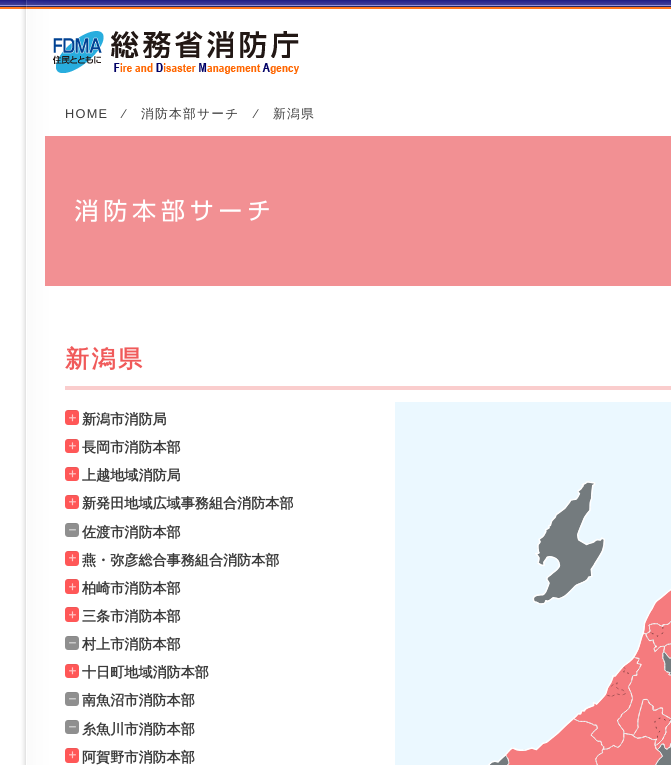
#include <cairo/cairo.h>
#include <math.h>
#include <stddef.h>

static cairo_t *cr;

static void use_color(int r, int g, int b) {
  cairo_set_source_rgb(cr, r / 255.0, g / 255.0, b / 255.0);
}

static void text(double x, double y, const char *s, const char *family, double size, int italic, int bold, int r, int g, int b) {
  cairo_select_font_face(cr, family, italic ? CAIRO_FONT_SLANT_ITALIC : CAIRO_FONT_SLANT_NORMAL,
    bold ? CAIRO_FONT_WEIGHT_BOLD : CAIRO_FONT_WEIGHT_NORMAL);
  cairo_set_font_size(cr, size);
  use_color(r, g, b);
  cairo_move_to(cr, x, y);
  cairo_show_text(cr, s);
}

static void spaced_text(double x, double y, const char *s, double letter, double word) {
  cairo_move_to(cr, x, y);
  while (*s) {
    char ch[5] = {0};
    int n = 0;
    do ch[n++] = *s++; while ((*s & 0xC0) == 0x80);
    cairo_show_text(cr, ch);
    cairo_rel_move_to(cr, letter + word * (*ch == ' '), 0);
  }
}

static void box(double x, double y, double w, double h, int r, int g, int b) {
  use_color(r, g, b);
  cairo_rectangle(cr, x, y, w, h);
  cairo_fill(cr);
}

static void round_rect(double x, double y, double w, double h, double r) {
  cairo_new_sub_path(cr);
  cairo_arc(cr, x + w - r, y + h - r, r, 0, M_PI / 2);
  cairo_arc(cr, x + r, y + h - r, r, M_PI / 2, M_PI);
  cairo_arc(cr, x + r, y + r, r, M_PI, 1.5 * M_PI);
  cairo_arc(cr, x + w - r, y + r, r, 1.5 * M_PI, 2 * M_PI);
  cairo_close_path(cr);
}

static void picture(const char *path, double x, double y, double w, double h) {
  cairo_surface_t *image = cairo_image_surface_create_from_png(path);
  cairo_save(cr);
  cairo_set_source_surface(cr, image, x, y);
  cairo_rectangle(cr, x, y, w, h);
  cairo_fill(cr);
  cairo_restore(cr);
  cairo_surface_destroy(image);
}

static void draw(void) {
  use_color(255, 255, 255);
  cairo_paint(cr);
  picture("img_01.png", 0, 0, 671, 765);
  picture("img_02.png", 53, 31, 246, 43);
  box(45, 136, 626, 150, 242, 144, 147);
  picture("img_03.png", 75, 199, 194, 23);
  box(65, 386, 606, 4, 250, 205, 205);
  use_color(255, 87, 87);
  round_rect(65, 410, 14, 15, 3);
  cairo_fill(cr);
  cairo_set_source_rgba(cr, 0.341, 0.341, 0.341, 0.1);
  cairo_new_path(cr);
  cairo_move_to(cr, 68, 411);
  cairo_line_to(cr, 77, 411);
  cairo_curve_to(cr, 78, 411.5, 79, 412.5, 79, 413.5);
  cairo_curve_to(cr, 79, 409.5, 75, 410, 72, 410);
  cairo_curve_to(cr, 68.5, 410, 65, 409, 65, 414);
  cairo_curve_to(cr, 65, 412, 66, 411, 68, 411);
  cairo_close_path(cr);
  cairo_fill(cr);
  picture("img_04.png", 69, 414, 7, 8);
  use_color(255, 87, 87);
  round_rect(65, 439, 14, 14, 3);
  cairo_fill(cr);
  cairo_set_source_rgba(cr, 0.341, 0.341, 0.341, 0.1);
  cairo_set_fill_rule(cr, CAIRO_FILL_RULE_EVEN_ODD);
  cairo_new_path(cr);
  cairo_move_to(cr, 68, 440);
  cairo_line_to(cr, 77, 440);
  cairo_curve_to(cr, 78, 440.5, 79, 441.5, 79, 442.5);
  cairo_curve_to(cr, 79, 438, 75.5, 439, 72, 439);
  cairo_curve_to(cr, 68.5, 439, 65, 438, 65, 443);
  cairo_curve_to(cr, 65, 441, 66, 440, 68, 440);
  cairo_close_path(cr);
  cairo_move_to(cr, 79, 448);
  cairo_line_to(cr, 79, 451);
  cairo_close_path(cr);
  cairo_move_to(cr, 65.5, 451);
  cairo_line_to(cr, 65, 448);
  cairo_close_path(cr);
  cairo_fill(cr);
  picture("img_04.png", 69, 442, 7, 8);
  use_color(255, 87, 87);
  round_rect(65, 467, 14, 14, 3);
  cairo_fill(cr);
  cairo_set_source_rgba(cr, 0.341, 0.341, 0.341, 0.1);
  cairo_new_path(cr);
  cairo_move_to(cr, 68, 468);
  cairo_line_to(cr, 77, 468);
  cairo_curve_to(cr, 78, 468.5, 79, 469.5, 79, 470.5);
  cairo_curve_to(cr, 79, 466, 75.5, 467, 72, 467);
  cairo_curve_to(cr, 68.5, 467, 65, 466, 65, 471);
  cairo_curve_to(cr, 65, 469, 66, 468, 68, 468);
  cairo_close_path(cr);
  cairo_move_to(cr, 79, 476);
  cairo_line_to(cr, 79, 479);
  cairo_close_path(cr);
  cairo_move_to(cr, 65.5, 479);
  cairo_line_to(cr, 65, 476);
  cairo_close_path(cr);
  cairo_fill(cr);
  picture("img_04.png", 69, 470, 7, 8);
  use_color(255, 87, 87);
  round_rect(65, 495, 14, 14, 3);
  cairo_fill(cr);
  cairo_set_source_rgba(cr, 0.341, 0.341, 0.341, 0.1);
  cairo_new_path(cr);
  cairo_move_to(cr, 68, 496);
  cairo_line_to(cr, 77, 496);
  cairo_curve_to(cr, 78, 496.5, 79, 497.5, 79, 498.5);
  cairo_curve_to(cr, 79, 494, 75.5, 495, 72, 495);
  cairo_curve_to(cr, 68.5, 495, 65, 494, 65, 499);
  cairo_curve_to(cr, 65, 497, 66, 496, 68, 496);
  cairo_close_path(cr);
  cairo_move_to(cr, 79, 504);
  cairo_line_to(cr, 79, 507);
  cairo_close_path(cr);
  cairo_move_to(cr, 65.5, 507);
  cairo_line_to(cr, 65, 504);
  cairo_close_path(cr);
  cairo_fill(cr);
  picture("img_04.png", 69, 498, 7, 8);
  use_color(143, 143, 143);
  round_rect(65, 523, 14, 14, 3);
  cairo_fill(cr);
  cairo_set_source_rgba(cr, 0.341, 0.341, 0.341, 0.1);
  cairo_new_path(cr);
  cairo_move_to(cr, 68, 524);
  cairo_line_to(cr, 77, 524);
  cairo_curve_to(cr, 78, 524.5, 79, 525.5, 79, 526.5);
  cairo_curve_to(cr, 79, 522, 75.5, 523, 72, 523);
  cairo_curve_to(cr, 68.5, 523, 65, 522, 65, 527);
  cairo_curve_to(cr, 65, 525, 66, 524, 68, 524);
  cairo_close_path(cr);
  cairo_move_to(cr, 79, 532);
  cairo_line_to(cr, 79, 535);
  cairo_close_path(cr);
  cairo_move_to(cr, 65.5, 535);
  cairo_line_to(cr, 65, 532);
  cairo_close_path(cr);
  cairo_fill(cr);
  picture("img_05.png", 69, 529, 7, 2);
  use_color(255, 87, 87);
  round_rect(65, 551, 14, 15, 3);
  cairo_fill(cr);
  cairo_set_source_rgba(cr, 0.341, 0.341, 0.341, 0.1);
  cairo_set_fill_rule(cr, CAIRO_FILL_RULE_WINDING);
  cairo_new_path(cr);
  cairo_move_to(cr, 68, 552);
  cairo_line_to(cr, 77, 552);
  cairo_curve_to(cr, 78, 552.5, 79, 553.5, 79, 554.5);
  cairo_curve_to(cr, 79, 550.5, 75, 551, 72, 551);
  cairo_curve_to(cr, 68.5, 551, 65, 550, 65, 555);
  cairo_curve_to(cr, 65, 553, 66, 552, 68, 552);
  cairo_close_path(cr);
  cairo_fill(cr);
  picture("img_04.png", 69, 554, 7, 8);
  use_color(255, 87, 87);
  round_rect(65, 579, 14, 15, 3);
  cairo_fill(cr);
  cairo_set_source_rgba(cr, 0.341, 0.341, 0.341, 0.1);
  cairo_new_path(cr);
  cairo_move_to(cr, 68, 580);
  cairo_line_to(cr, 77, 580);
  cairo_curve_to(cr, 78, 580.5, 79, 581.5, 79, 582.5);
  cairo_curve_to(cr, 79, 578.5, 75, 579, 72, 579);
  cairo_curve_to(cr, 68.5, 579, 65, 578, 65, 583);
  cairo_curve_to(cr, 65, 581, 66, 580, 68, 580);
  cairo_close_path(cr);
  cairo_fill(cr);
  picture("img_04.png", 69, 583, 7, 8);
  use_color(255, 87, 87);
  round_rect(65, 607, 14, 15, 3);
  cairo_fill(cr);
  cairo_set_source_rgba(cr, 0.341, 0.341, 0.341, 0.1);
  cairo_new_path(cr);
  cairo_move_to(cr, 68, 608);
  cairo_line_to(cr, 77, 608);
  cairo_curve_to(cr, 78, 608.5, 79, 609.5, 79, 610.5);
  cairo_curve_to(cr, 79, 606.5, 75, 607, 72, 607);
  cairo_curve_to(cr, 68.5, 607, 65, 606, 65, 611);
  cairo_curve_to(cr, 65, 609, 66, 608, 68, 608);
  cairo_close_path(cr);
  cairo_fill(cr);
  picture("img_04.png", 69, 611, 7, 8);
  use_color(143, 143, 143);
  round_rect(65, 636, 14, 14, 3);
  cairo_fill(cr);
  cairo_set_source_rgba(cr, 0.341, 0.341, 0.341, 0.1);
  cairo_set_fill_rule(cr, CAIRO_FILL_RULE_EVEN_ODD);
  cairo_new_path(cr);
  cairo_move_to(cr, 68, 637);
  cairo_line_to(cr, 77, 637);
  cairo_curve_to(cr, 78, 637.5, 79, 638.5, 79, 639.5);
  cairo_curve_to(cr, 79, 635, 75.5, 636, 72, 636);
  cairo_curve_to(cr, 68.5, 636, 65, 635, 65, 640);
  cairo_curve_to(cr, 65, 638, 66, 637, 68, 637);
  cairo_close_path(cr);
  cairo_move_to(cr, 79, 645);
  cairo_line_to(cr, 79, 648);
  cairo_close_path(cr);
  cairo_move_to(cr, 65.5, 648);
  cairo_line_to(cr, 65, 645);
  cairo_close_path(cr);
  cairo_fill(cr);
  picture("img_05.png", 69, 642, 7, 2);
  use_color(255, 87, 87);
  round_rect(65, 664, 14, 14, 3);
  cairo_fill(cr);
  cairo_set_source_rgba(cr, 0.341, 0.341, 0.341, 0.1);
  cairo_new_path(cr);
  cairo_move_to(cr, 68, 665);
  cairo_line_to(cr, 77, 665);
  cairo_curve_to(cr, 78, 665.5, 79, 666.5, 79, 667.5);
  cairo_curve_to(cr, 79, 663, 75.5, 664, 72, 664);
  cairo_curve_to(cr, 68.5, 664, 65, 663, 65, 668);
  cairo_curve_to(cr, 65, 666, 66, 665, 68, 665);
  cairo_close_path(cr);
  cairo_move_to(cr, 79, 673);
  cairo_line_to(cr, 79, 676);
  cairo_close_path(cr);
  cairo_move_to(cr, 65.5, 676);
  cairo_line_to(cr, 65, 673);
  cairo_close_path(cr);
  cairo_fill(cr);
  picture("img_04.png", 69, 667, 7, 8);
  use_color(143, 143, 143);
  round_rect(65, 692, 14, 14, 3);
  cairo_fill(cr);
  cairo_set_source_rgba(cr, 0.341, 0.341, 0.341, 0.1);
  cairo_new_path(cr);
  cairo_move_to(cr, 68, 693);
  cairo_line_to(cr, 77, 693);
  cairo_curve_to(cr, 78, 693.5, 79, 694.5, 79, 695.5);
  cairo_curve_to(cr, 79, 691, 75.5, 692, 72, 692);
  cairo_curve_to(cr, 68.5, 692, 65, 691, 65, 696);
  cairo_curve_to(cr, 65, 694, 66, 693, 68, 693);
  cairo_close_path(cr);
  cairo_move_to(cr, 79, 701);
  cairo_line_to(cr, 79, 704);
  cairo_close_path(cr);
  cairo_move_to(cr, 65.5, 704);
  cairo_line_to(cr, 65, 701);
  cairo_close_path(cr);
  cairo_fill(cr);
  picture("img_05.png", 69, 698, 7, 2);
  use_color(143, 143, 143);
  round_rect(65, 720, 14, 14, 3);
  cairo_fill(cr);
  cairo_set_source_rgba(cr, 0.341, 0.341, 0.341, 0.1);
  cairo_new_path(cr);
  cairo_move_to(cr, 68, 721);
  cairo_line_to(cr, 77, 721);
  cairo_curve_to(cr, 78, 721.5, 79, 722.5, 79, 723.5);
  cairo_curve_to(cr, 79, 719, 75.5, 720, 72, 720);
  cairo_curve_to(cr, 68.5, 720, 65, 719, 65, 724);
  cairo_curve_to(cr, 65, 722, 66, 721, 68, 721);
  cairo_close_path(cr);
  cairo_move_to(cr, 79, 729);
  cairo_line_to(cr, 79, 732);
  cairo_close_path(cr);
  cairo_move_to(cr, 65.5, 732);
  cairo_line_to(cr, 65, 729);
  cairo_close_path(cr);
  cairo_fill(cr);
  picture("img_05.png", 69, 726, 7, 2);
  use_color(255, 87, 87);
  round_rect(65, 748, 14, 15, 3);
  cairo_fill(cr);
  cairo_set_source_rgba(cr, 0.341, 0.341, 0.341, 0.1);
  cairo_set_fill_rule(cr, CAIRO_FILL_RULE_WINDING);
  cairo_new_path(cr);
  cairo_move_to(cr, 68, 749);
  cairo_line_to(cr, 77, 749);
  cairo_curve_to(cr, 78, 749.5, 79, 750.5, 79, 751.5);
  cairo_curve_to(cr, 79, 747.5, 75, 748, 72, 748);
  cairo_curve_to(cr, 68.5, 748, 65, 747, 65, 752);
  cairo_curve_to(cr, 65, 750, 66, 749, 68, 749);
  cairo_close_path(cr);
  cairo_fill(cr);
  picture("img_04.png", 69, 751, 7, 8);
  picture("img_06.png", 395, 402, 276, 363);
  cairo_select_font_face(cr, "Liberation Sans", CAIRO_FONT_SLANT_NORMAL, CAIRO_FONT_WEIGHT_NORMAL);
  cairo_set_font_size(cr, 12.75);
  use_color(59, 59, 59);
  spaced_text(65, 118, "HOME", 1.25, 0);
  spaced_text(123, 118, "⁄", 1.25, 0);
  cairo_select_font_face(cr, "WenQuanYi Zen Hei Medium", CAIRO_FONT_SLANT_NORMAL, CAIRO_FONT_WEIGHT_NORMAL);
  spaced_text(141, 118, "消防本部サーチ", 1.25, 0);
  cairo_select_font_face(cr, "Liberation Sans", CAIRO_FONT_SLANT_NORMAL, CAIRO_FONT_WEIGHT_NORMAL);
  spaced_text(255, 118, "⁄", 1.25, 0);
  cairo_select_font_face(cr, "WenQuanYi Zen Hei Medium", CAIRO_FONT_SLANT_NORMAL, CAIRO_FONT_WEIGHT_NORMAL);
  spaced_text(273, 118, "新潟県", 1.25, 0);
  cairo_select_font_face(cr, "WenQuanYi Zen Hei", CAIRO_FONT_SLANT_NORMAL, CAIRO_FONT_WEIGHT_BOLD);
  cairo_set_font_size(cr, 24);
  use_color(240, 90, 90);
  spaced_text(65, 367, "新潟県", 2.5, 0);
  text(82, 424, "新潟市消防局", "WenQuanYi Zen Hei", 14.1, 0, 1, 59, 59, 59);
  text(82, 452, "長岡市消防本部", "WenQuanYi Zen Hei", 14.1, 0, 1, 59, 59, 59);
  text(82, 480, "上越地域消防局", "WenQuanYi Zen Hei", 14.1, 0, 1, 59, 59, 59);
  text(82, 508, "新発田地域広域事務組合消防本部", "WenQuanYi Zen Hei", 14.1, 0, 1, 59, 59, 59);
  text(82, 537, "佐渡市消防本部", "WenQuanYi Zen Hei", 14.1, 0, 1, 59, 59, 59);
  text(82, 565, "燕・弥彦総合事務組合消防本部", "WenQuanYi Zen Hei", 14.1, 0, 1, 59, 59, 59);
  text(82, 593, "柏崎市消防本部", "WenQuanYi Zen Hei", 14.1, 0, 1, 59, 59, 59);
  text(82, 621, "三条市消防本部", "WenQuanYi Zen Hei", 14.1, 0, 1, 59, 59, 59);
  text(82, 649, "村上市消防本部", "WenQuanYi Zen Hei", 14.1, 0, 1, 59, 59, 59);
  text(82, 677, "十日町地域消防本部", "WenQuanYi Zen Hei", 14.1, 0, 1, 59, 59, 59);
  text(82, 705, "南魚沼市消防本部", "WenQuanYi Zen Hei", 14.1, 0, 1, 59, 59, 59);
  text(82, 734, "糸魚川市消防本部", "WenQuanYi Zen Hei", 14.1, 0, 1, 59, 59, 59);
  text(82, 762, "阿賀野市消防本部", "WenQuanYi Zen Hei", 14.1, 0, 1, 59, 59, 59);
}

int main(void) {
  cairo_surface_t *surface = cairo_image_surface_create(CAIRO_FORMAT_RGB24, 671, 765);
  cr = cairo_create(surface);
  cairo_font_options_t *options = cairo_font_options_create();
  cairo_font_options_set_hint_metrics(options, CAIRO_HINT_METRICS_OFF);
  cairo_font_options_set_hint_style(options, CAIRO_HINT_STYLE_NONE);
  cairo_set_font_options(cr, options);
  cairo_set_miter_limit(cr, 4);
  draw();
  cairo_surface_write_to_png(surface, "out.png");
  cairo_font_options_destroy(options);
  cairo_destroy(cr);
  cairo_surface_destroy(surface);
  return 0;
}
